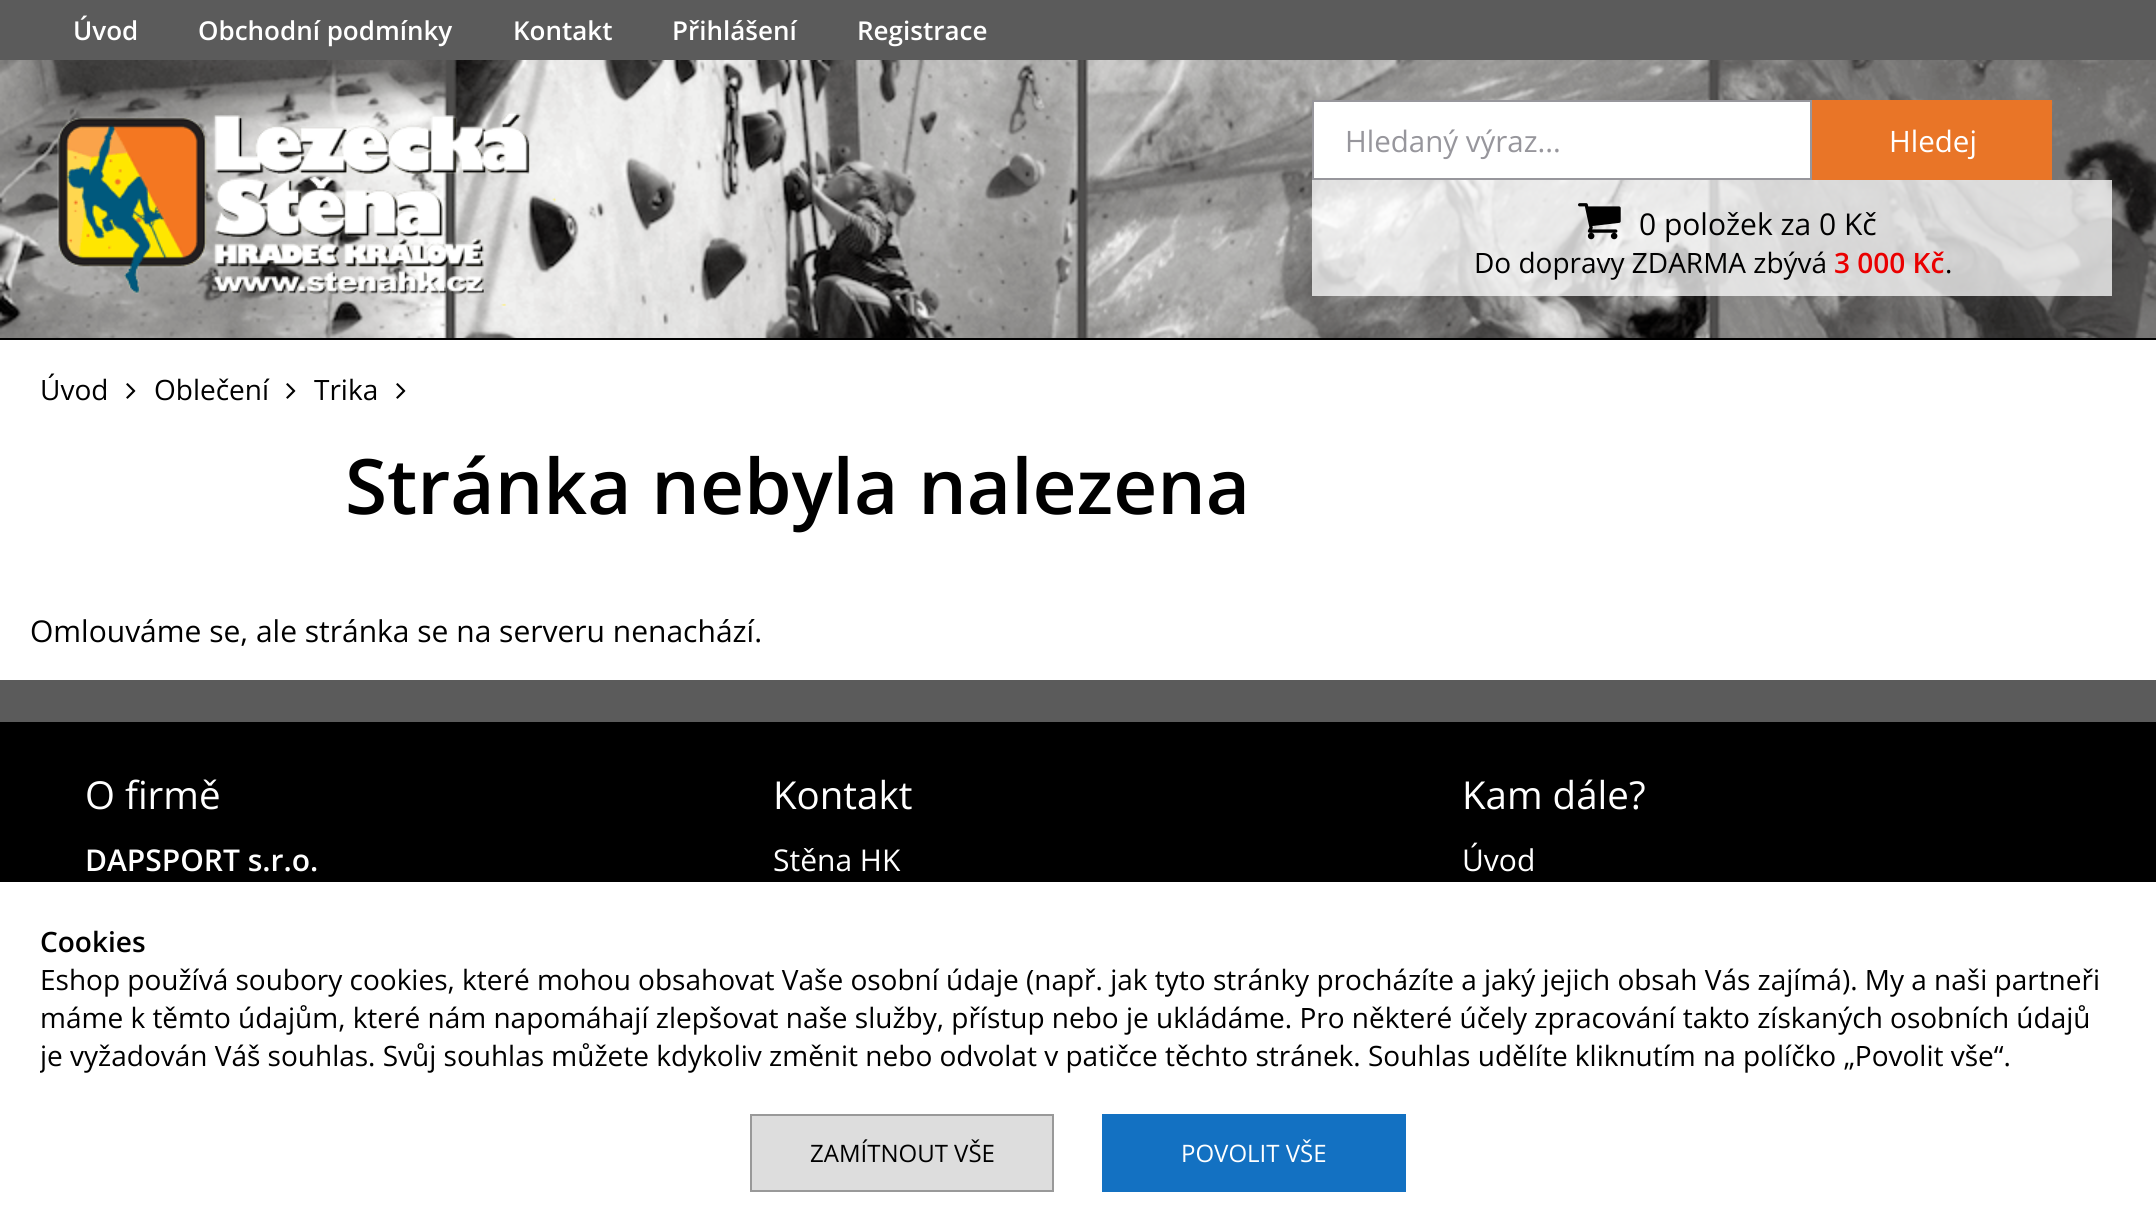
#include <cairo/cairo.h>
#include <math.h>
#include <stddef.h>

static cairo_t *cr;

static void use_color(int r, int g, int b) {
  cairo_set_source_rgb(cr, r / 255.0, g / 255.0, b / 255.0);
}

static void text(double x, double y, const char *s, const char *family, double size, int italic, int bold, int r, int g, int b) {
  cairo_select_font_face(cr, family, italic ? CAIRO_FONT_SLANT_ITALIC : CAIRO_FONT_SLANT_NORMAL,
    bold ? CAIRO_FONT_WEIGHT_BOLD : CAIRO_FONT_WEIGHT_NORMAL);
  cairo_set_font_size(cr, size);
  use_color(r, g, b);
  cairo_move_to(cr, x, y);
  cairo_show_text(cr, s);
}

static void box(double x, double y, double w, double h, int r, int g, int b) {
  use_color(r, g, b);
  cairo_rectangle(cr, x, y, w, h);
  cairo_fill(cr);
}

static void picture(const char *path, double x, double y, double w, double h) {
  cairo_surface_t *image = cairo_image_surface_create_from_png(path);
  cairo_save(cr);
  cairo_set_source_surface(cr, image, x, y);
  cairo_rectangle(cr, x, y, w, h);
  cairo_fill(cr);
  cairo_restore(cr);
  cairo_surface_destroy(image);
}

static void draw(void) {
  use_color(91, 91, 91);
  cairo_paint(cr);
  picture("img_01.png", 0, 60, 2156, 278);
  box(0, 338, 2156, 2, 0, 0, 0);
  picture("img_02.png", 57, 112, 499, 194);
  use_color(255, 255, 255);
  cairo_rectangle(cr, 1313, 101, 498, 78);
  cairo_fill_preserve(cr);
  use_color(151, 150, 156);
  cairo_stroke(cr);
  box(1812, 100, 240, 80, 233, 117, 39);
  cairo_set_source_rgba(cr, 1, 1, 1, 0.75);
  cairo_rectangle(cr, 1312, 180, 800, 116);
  cairo_fill(cr);
  picture("img_03.png", 1578, 203, 43, 37);
  box(0, 340, 2156, 340, 255, 255, 255);
  picture("img_04.png", 126, 383, 10, 16);
  picture("img_04.png", 286, 383, 10, 16);
  picture("img_04.png", 396, 383, 10, 16);
  box(0, 722, 2156, 160, 0, 0, 0);
  box(0, 882, 2156, 349, 255, 255, 255);
  use_color(221, 221, 221);
  cairo_rectangle(cr, 751, 1115, 302, 76);
  cairo_fill_preserve(cr);
  use_color(153, 153, 153);
  cairo_stroke(cr);
  box(1102, 1114, 304, 78, 19, 113, 194);
  text(73, 40, "Úvod", "Open Sans SemiBold", 26, 0, 0, 255, 255, 255);
  text(198, 40, "Obchodní podmínky", "Open Sans SemiBold", 26, 0, 0, 255, 255, 255);
  text(513, 40, "Kontakt", "Open Sans SemiBold", 26, 0, 0, 255, 255, 255);
  text(672, 40, "Přihlášení", "Open Sans SemiBold", 26, 0, 0, 255, 255, 255);
  text(857, 40, "Registrace", "Open Sans SemiBold", 26, 0, 0, 255, 255, 255);
  text(1345, 152, "Hledaný výraz...", "Open Sans", 29.5, 0, 0, 151, 150, 156);
  text(1889, 152, "Hledej", "Open Sans", 29.5, 0, 0, 255, 255, 255);
  text(1639, 235, "0 položek za 0 Kč", "Open Sans", 30, 0, 0, 0, 0, 0);
  text(1474, 273, "Do dopravy ZDARMA zbývá", "Open Sans", 28, 0, 0, 0, 0, 0);
  text(1834, 273, "3 000 Kč", "Open Sans SemiBold", 28, 0, 0, 234, 0, 0);
  text(1945, 273, ".", "Open Sans", 28, 0, 0, 0, 0, 0);
  text(40, 400, "Úvod", "Open Sans", 28, 0, 0, 0, 0, 0);
  text(154, 400, "Oblečení", "Open Sans", 28, 0, 0, 0, 0, 0);
  text(314, 400, "Trika", "Open Sans", 28, 0, 0, 0, 0, 0);
  text(345, 514, "Stránka nebyla nalezena", "Open Sans SemiBold", 76.5, 0, 0, 0, 0, 0);
  text(30, 642, "Omlouváme se, ale stránka se na serveru nenachází.", "Open Sans", 30, 0, 0, 0, 0, 0);
  text(85, 809, "O firmě", "Open Sans", 38.5, 0, 0, 255, 255, 255);
  text(85, 871, "DAPSPORT s.r.o.", "Open Sans SemiBold", 30, 0, 0, 255, 255, 255);
  text(773, 809, "Kontakt", "Open Sans", 38.5, 0, 0, 255, 255, 255);
  text(773, 871, "Stěna HK", "Open Sans", 30, 0, 0, 255, 255, 255);
  text(1462, 809, "Kam dále?", "Open Sans", 38.5, 0, 0, 255, 255, 255);
  text(1462, 871, "Úvod", "Open Sans", 30, 0, 0, 255, 255, 255);
  text(40, 952, "Cookies", "Open Sans SemiBold", 28, 0, 0, 0, 0, 0);
  text(40, 990, "Eshop používá soubory cookies, které mohou obsahovat Vaše osobní údaje (např. jak tyto stránky procházíte a jaký jejich obsah Vás zajímá). My a naši partneři", "Open Sans", 28, 0, 0, 0, 0, 0);
  text(40, 1028, "máme k těmto údajům, které nám napomáhají zlepšovat naše služby, přístup nebo je ukládáme. Pro některé účely zpracování takto získaných osobních údajů", "Open Sans", 28, 0, 0, 0, 0, 0);
  cairo_save(cr);
  cairo_rectangle(cr, 40, 922, 2076, 152);
  cairo_clip(cr);
  text(40, 1066, "je vyžadován Váš souhlas. Svůj souhlas můžete kdykoliv změnit nebo odvolat v patičce těchto stránek. Souhlas udělíte kliknutím na políčko „Povolit vše“.", "Open Sans", 28, 0, 0, 0, 0, 0);
  cairo_restore(cr);
  text(810, 1162, "ZAMÍTNOUT VŠE", "Open Sans", 24, 0, 0, 0, 0, 0);
  text(1181, 1162, "POVOLIT VŠE", "Open Sans", 24, 0, 0, 255, 255, 255);
}

int main(void) {
  cairo_surface_t *surface = cairo_image_surface_create(CAIRO_FORMAT_RGB24, 2156, 1231);
  cr = cairo_create(surface);
  cairo_font_options_t *options = cairo_font_options_create();
  cairo_font_options_set_hint_metrics(options, CAIRO_HINT_METRICS_OFF);
  cairo_font_options_set_hint_style(options, CAIRO_HINT_STYLE_NONE);
  cairo_set_font_options(cr, options);
  cairo_set_miter_limit(cr, 4);
  draw();
  cairo_surface_write_to_png(surface, "out.png");
  cairo_font_options_destroy(options);
  cairo_destroy(cr);
  cairo_surface_destroy(surface);
  return 0;
}
